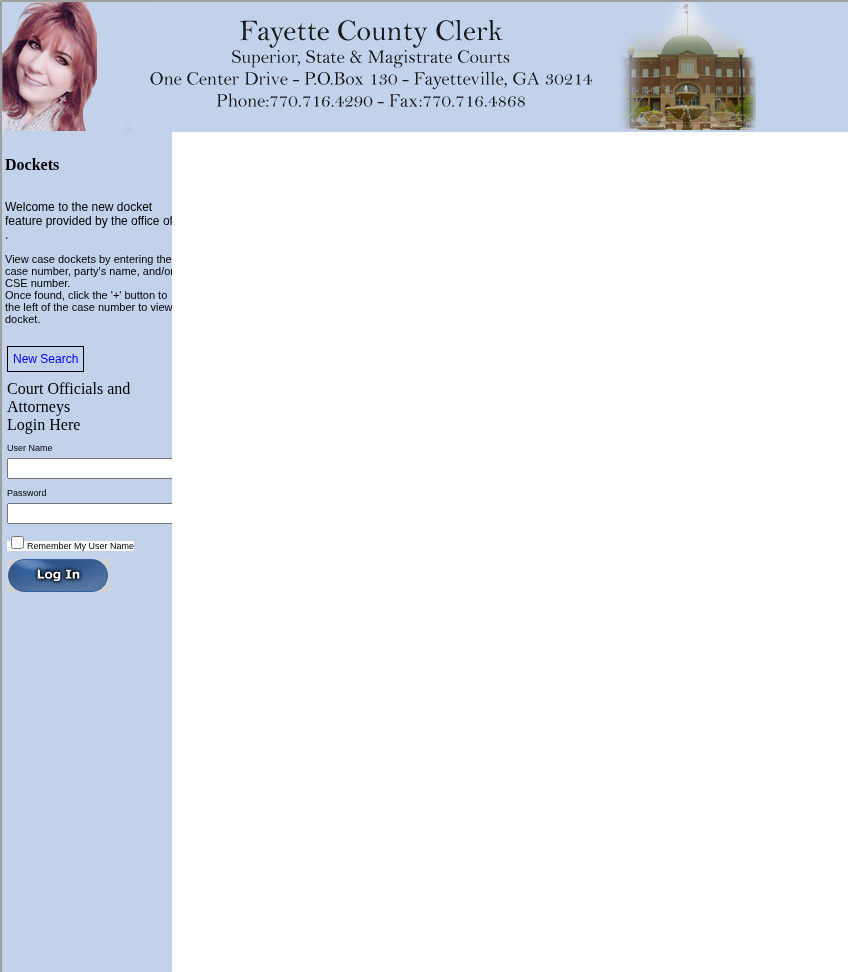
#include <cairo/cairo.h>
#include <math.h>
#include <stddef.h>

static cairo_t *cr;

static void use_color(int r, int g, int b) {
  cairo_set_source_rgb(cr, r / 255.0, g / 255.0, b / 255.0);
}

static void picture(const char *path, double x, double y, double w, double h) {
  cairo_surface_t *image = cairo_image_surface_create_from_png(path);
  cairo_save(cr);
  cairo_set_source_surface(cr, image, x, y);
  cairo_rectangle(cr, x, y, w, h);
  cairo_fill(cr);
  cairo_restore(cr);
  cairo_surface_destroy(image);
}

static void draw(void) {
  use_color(255, 255, 255);
  cairo_paint(cr);
  use_color(159, 159, 159);
  cairo_new_path(cr);
  cairo_move_to(cr, 0, 0);
  cairo_line_to(cr, 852, 0);
  cairo_line_to(cr, 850, 2);
  cairo_line_to(cr, 2, 2);
  cairo_close_path(cr);
  cairo_fill(cr);
  cairo_new_path(cr);
  cairo_move_to(cr, 0, 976);
  cairo_line_to(cr, 0, 0);
  cairo_line_to(cr, 2, 2);
  cairo_line_to(cr, 2, 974);
  cairo_close_path(cr);
  cairo_fill(cr);
  picture("img_01.png", 2, 2, 846, 970);
}

int main(void) {
  cairo_surface_t *surface = cairo_image_surface_create(CAIRO_FORMAT_RGB24, 848, 972);
  cr = cairo_create(surface);
  cairo_font_options_t *options = cairo_font_options_create();
  cairo_font_options_set_hint_metrics(options, CAIRO_HINT_METRICS_OFF);
  cairo_font_options_set_hint_style(options, CAIRO_HINT_STYLE_NONE);
  cairo_set_font_options(cr, options);
  cairo_set_miter_limit(cr, 4);
  draw();
  cairo_surface_write_to_png(surface, "out.png");
  cairo_font_options_destroy(options);
  cairo_destroy(cr);
  cairo_surface_destroy(surface);
  return 0;
}
